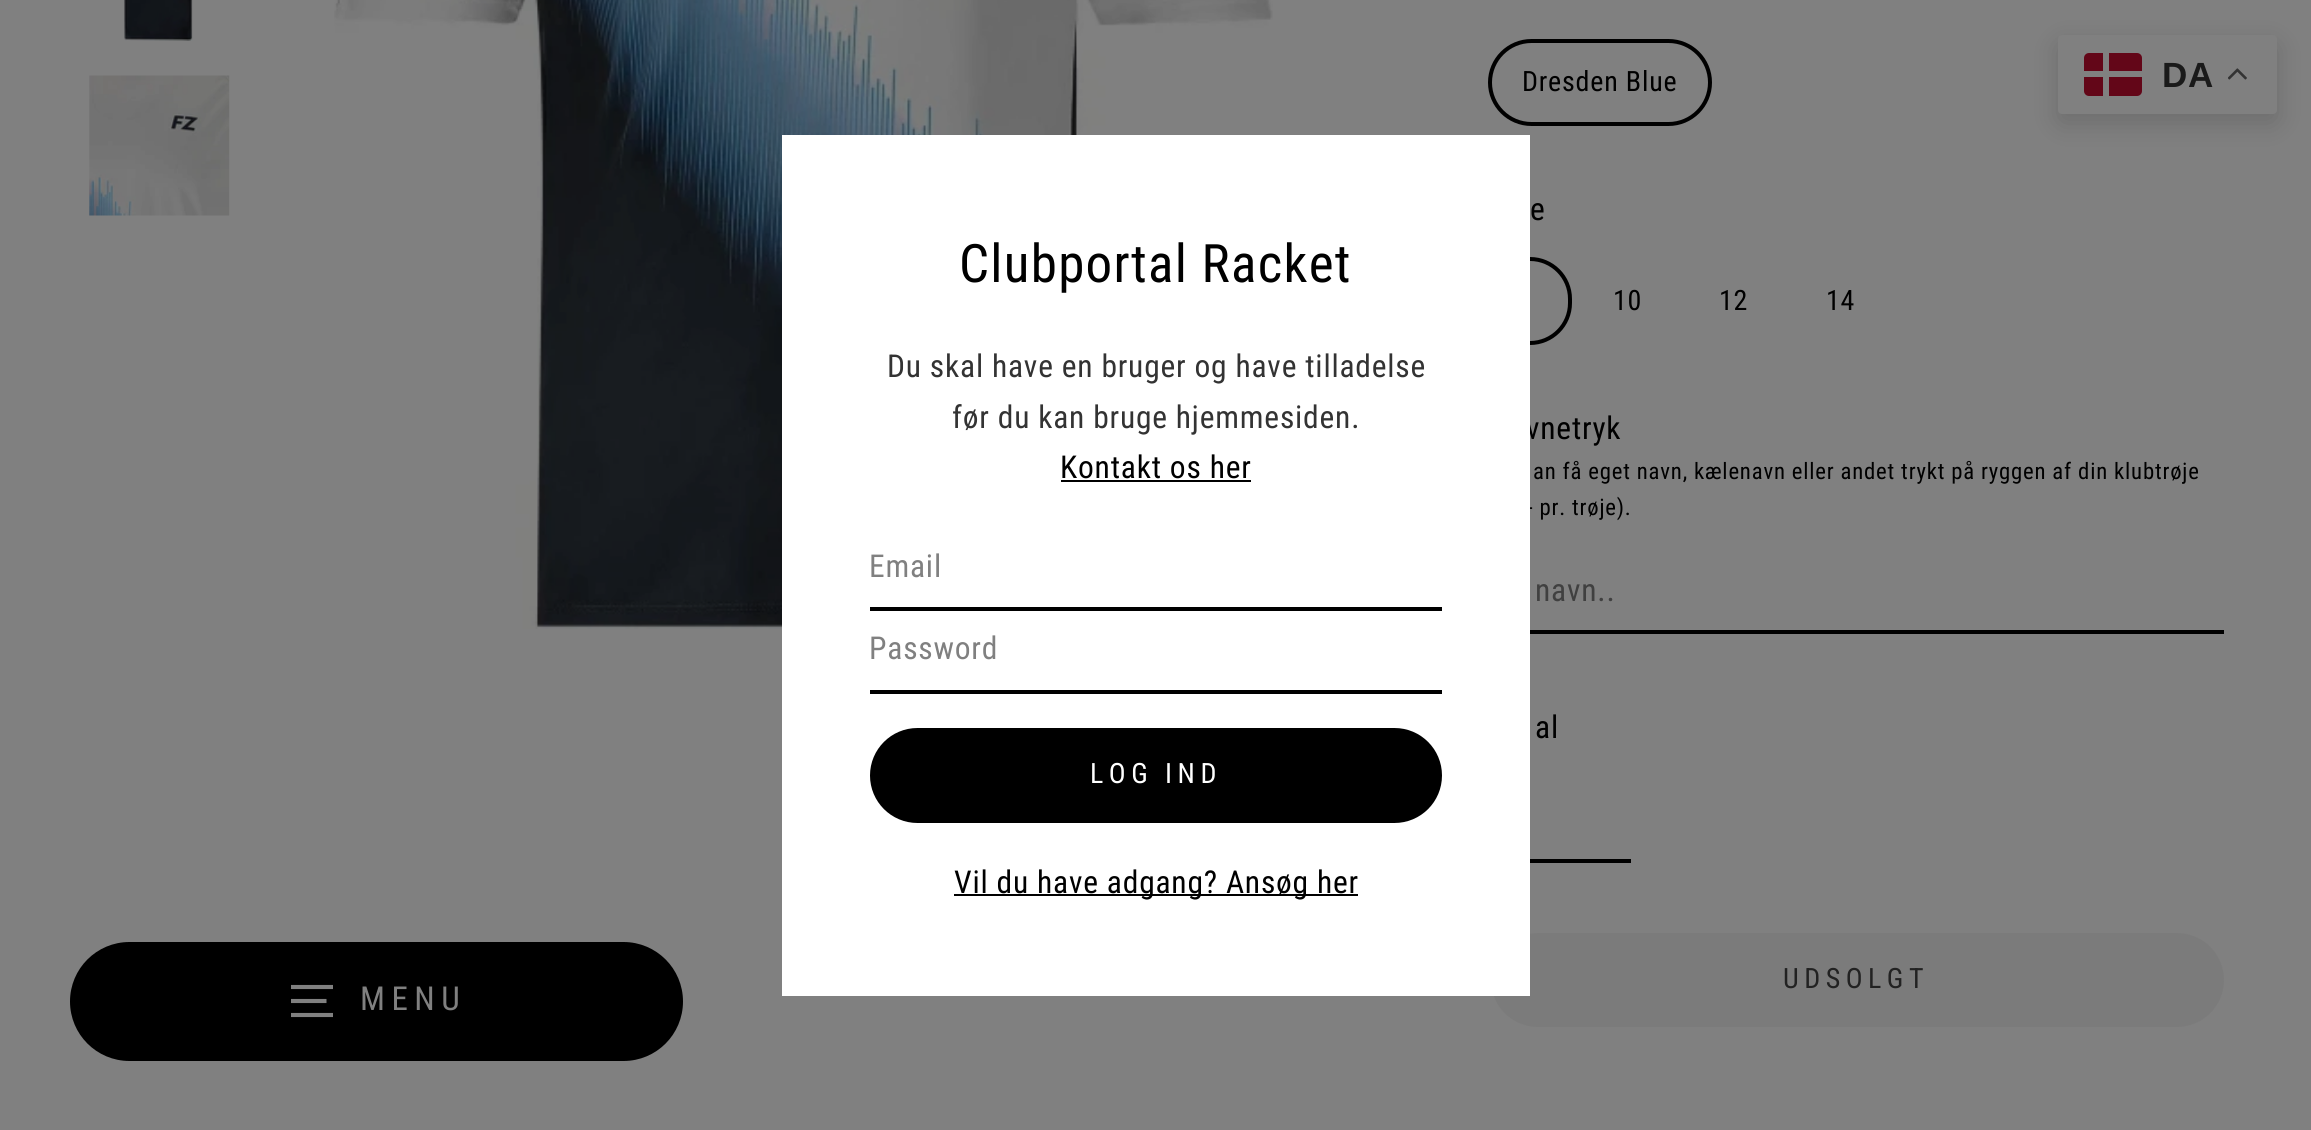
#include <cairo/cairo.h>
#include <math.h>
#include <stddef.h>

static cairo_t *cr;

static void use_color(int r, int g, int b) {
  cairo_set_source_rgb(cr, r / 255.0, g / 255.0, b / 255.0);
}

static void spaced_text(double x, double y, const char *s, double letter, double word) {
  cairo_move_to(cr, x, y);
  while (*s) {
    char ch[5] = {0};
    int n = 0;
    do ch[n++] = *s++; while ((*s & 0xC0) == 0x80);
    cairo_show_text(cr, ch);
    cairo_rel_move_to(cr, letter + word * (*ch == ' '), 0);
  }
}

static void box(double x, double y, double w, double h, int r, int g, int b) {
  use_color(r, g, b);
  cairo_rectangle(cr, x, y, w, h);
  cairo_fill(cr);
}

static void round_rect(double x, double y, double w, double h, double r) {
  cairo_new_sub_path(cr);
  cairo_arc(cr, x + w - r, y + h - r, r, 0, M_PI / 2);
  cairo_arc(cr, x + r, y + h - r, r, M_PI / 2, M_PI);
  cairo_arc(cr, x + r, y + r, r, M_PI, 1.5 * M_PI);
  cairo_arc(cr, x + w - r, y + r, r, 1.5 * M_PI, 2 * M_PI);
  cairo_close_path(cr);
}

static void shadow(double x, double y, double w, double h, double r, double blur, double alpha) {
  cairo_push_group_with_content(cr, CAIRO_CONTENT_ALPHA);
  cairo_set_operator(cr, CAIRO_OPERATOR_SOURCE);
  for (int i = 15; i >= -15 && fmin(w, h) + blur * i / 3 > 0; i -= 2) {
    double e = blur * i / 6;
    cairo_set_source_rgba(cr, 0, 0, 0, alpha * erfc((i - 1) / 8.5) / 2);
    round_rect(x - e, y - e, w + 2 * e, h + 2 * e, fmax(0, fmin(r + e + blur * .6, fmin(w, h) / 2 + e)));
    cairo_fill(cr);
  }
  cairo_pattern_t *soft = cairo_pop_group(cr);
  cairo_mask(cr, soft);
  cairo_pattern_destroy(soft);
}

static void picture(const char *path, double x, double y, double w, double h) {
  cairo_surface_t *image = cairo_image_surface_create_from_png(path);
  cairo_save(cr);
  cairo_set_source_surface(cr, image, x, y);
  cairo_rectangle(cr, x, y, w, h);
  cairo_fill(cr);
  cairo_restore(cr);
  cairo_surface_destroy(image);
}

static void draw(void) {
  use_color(128, 128, 128);
  cairo_paint(cr);
  use_color(0, 0, 0);
  shadow(2058, 44, 219, 79, 4, 13, 0.15);
  use_color(128, 128, 128);
  round_rect(2058, 35, 219, 79, 4);
  cairo_fill(cr);
  use_color(99, 6, 24);
  round_rect(2084, 53, 58, 43, 5);
  cairo_fill(cr);
  box(2103, 53, 6, 43, 128, 128, 128);
  box(2084, 71, 58, 6, 128, 128, 128);
  picture("img_01.png", 2228, 68, 19, 12);
  picture("img_02.png", 124, 0, 69, 41);
  picture("img_03.png", 89, 75, 141, 141);
  picture("img_04.png", 334, 0, 939, 629);
  round_rect(1490, 41, 220, 83, 41.5);
  use_color(0, 0, 0);
  cairo_set_line_width(cr, 4);
  cairo_stroke(cr);
  round_rect(1490, 259, 80, 84, 40);
  cairo_stroke(cr);
  box(1530, 630, 694, 4, 0, 0, 0);
  box(1530, 859, 101, 4, 0, 0, 0);
  use_color(123, 123, 123);
  round_rect(1491, 933, 733, 94, 47);
  cairo_fill(cr);
  use_color(0, 0, 0);
  round_rect(70, 942, 613, 119, 59.5);
  cairo_fill(cr);
  cairo_new_path(cr);
  cairo_move_to(cr, 291, 987);
  cairo_line_to(cr, 333, 987);
  cairo_move_to(cr, 291, 1001);
  cairo_line_to(cr, 326.5, 1001);
  cairo_move_to(cr, 291, 1015);
  cairo_line_to(cr, 333, 1015);
  use_color(128, 128, 128);
  cairo_set_line_width(cr, 4.1);
  cairo_stroke(cr);
  cairo_select_font_face(cr, "Liberation Sans", CAIRO_FONT_SLANT_NORMAL, CAIRO_FONT_WEIGHT_BOLD);
  cairo_set_font_size(cr, 35);
  use_color(26, 26, 26);
  spaced_text(2162, 87, "DA", 0.8, 0);
  cairo_select_font_face(cr, "Roboto Condensed", CAIRO_FONT_SLANT_NORMAL, CAIRO_FONT_WEIGHT_NORMAL);
  cairo_set_font_size(cr, 28);
  use_color(0, 0, 0);
  spaced_text(1522, 91, "Dresden Blue", 0.8, 0);
  cairo_set_font_size(cr, 31.5);
  spaced_text(1530, 220, "e", 0.8, 0);
  cairo_set_font_size(cr, 28);
  spaced_text(1613, 310, "10", 0.8, 0);
  spaced_text(1719, 310, "12", 0.8, 0);
  spaced_text(1826, 310, "14", 0.8, 0);
  cairo_set_font_size(cr, 31.5);
  spaced_text(1526, 439, "vnetryk", 0.8, 0);
  cairo_set_font_size(cr, 22.75);
  spaced_text(1533, 479, "an få eget navn, kælenavn eller andet trykt på ryggen af din klubtrøje", 0.8, 0);
  spaced_text(1527, 515, "- pr. trøje).", 0.8, 0);
  cairo_set_font_size(cr, 31.5);
  use_color(64, 64, 64);
  spaced_text(1535, 601, "navn..", 0.8, 0);
  use_color(0, 0, 0);
  spaced_text(1535, 738, "al", 0.8, 0);
  cairo_set_font_size(cr, 28);
  use_color(34, 34, 34);
  spaced_text(1783, 988, "UDSOLGT", 5.5, 0);
  cairo_set_font_size(cr, 33);
  use_color(128, 128, 128);
  spaced_text(360, 1010, "MENU", 6.5, 0);
  box(782, 135, 748, 861, 255, 255, 255);
  cairo_set_font_size(cr, 53);
  use_color(0, 0, 0);
  spaced_text(959, 282, "Clubportal Racket", 1.3, 0);
  cairo_set_font_size(cr, 31.5);
  use_color(51, 51, 51);
  spaced_text(887, 377, "Du skal have en bruger og have tilladelse", 0.8, 0);
  spaced_text(952, 428, "før du kan bruge hjemmesiden.", 0.8, 0);
  use_color(0, 0, 0);
  spaced_text(1060, 478, "Kontakt os her", 0.8, 0);
  box(1061, 480, 190, 2, 0, 0, 0);
  box(870, 607, 572, 4, 0, 0, 0);
  use_color(128, 128, 128);
  spaced_text(869, 577, "Email", 0.8, 0);
  box(870, 690, 572, 4, 0, 0, 0);
  use_color(128, 128, 128);
  spaced_text(869, 659, "Password", 0.8, 0);
  use_color(0, 0, 0);
  round_rect(870, 728, 572, 95, 47.5);
  cairo_fill(cr);
  cairo_set_font_size(cr, 28);
  use_color(255, 255, 255);
  spaced_text(1090, 783, "LOG IND", 5.5, 0);
  box(954, 894, 404, 2, 0, 0, 0);
  cairo_set_font_size(cr, 31.5);
  spaced_text(954, 893, "Vil du have adgang? Ansøg her", 0.8, 0);
}

int main(void) {
  cairo_surface_t *surface = cairo_image_surface_create(CAIRO_FORMAT_RGB24, 2311, 1130);
  cr = cairo_create(surface);
  cairo_font_options_t *options = cairo_font_options_create();
  cairo_font_options_set_hint_metrics(options, CAIRO_HINT_METRICS_OFF);
  cairo_font_options_set_hint_style(options, CAIRO_HINT_STYLE_NONE);
  cairo_set_font_options(cr, options);
  cairo_set_miter_limit(cr, 4);
  draw();
  cairo_surface_write_to_png(surface, "out.png");
  cairo_font_options_destroy(options);
  cairo_destroy(cr);
  cairo_surface_destroy(surface);
  return 0;
}
